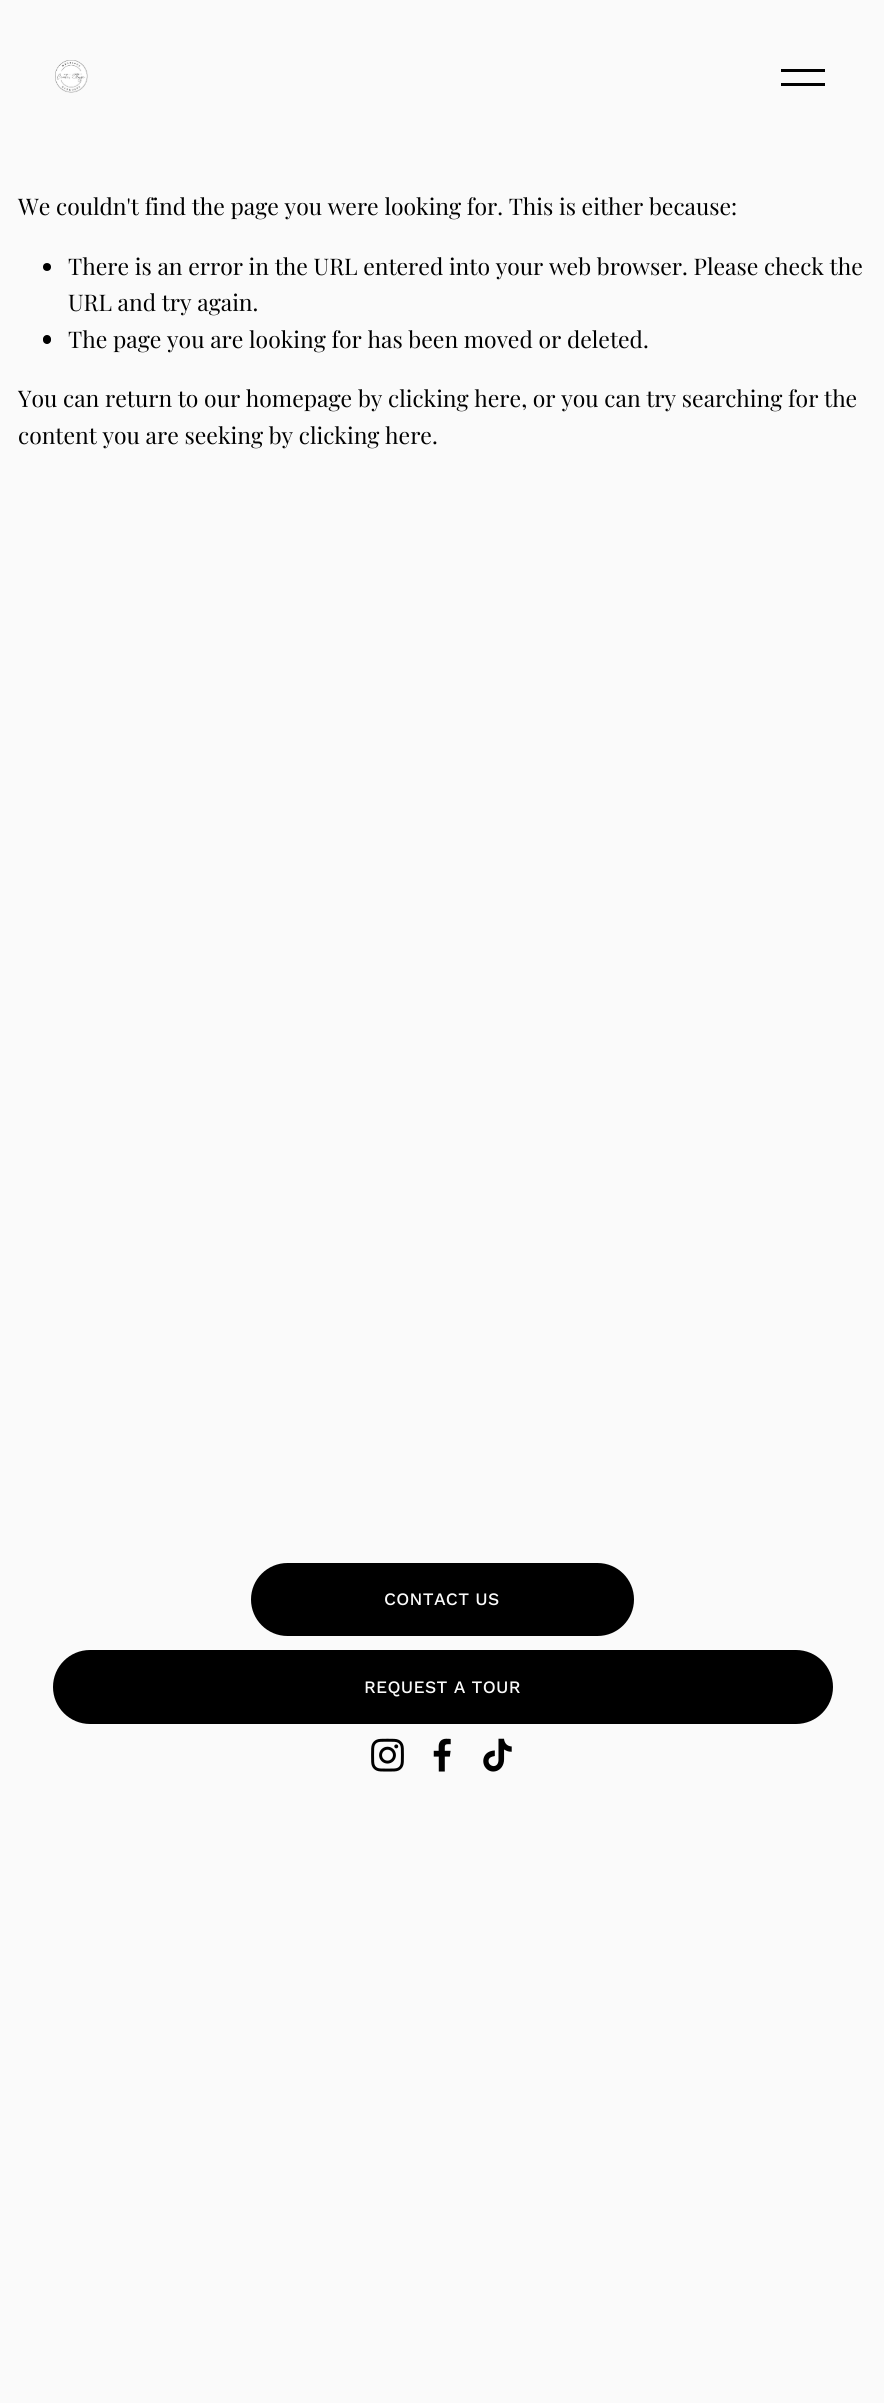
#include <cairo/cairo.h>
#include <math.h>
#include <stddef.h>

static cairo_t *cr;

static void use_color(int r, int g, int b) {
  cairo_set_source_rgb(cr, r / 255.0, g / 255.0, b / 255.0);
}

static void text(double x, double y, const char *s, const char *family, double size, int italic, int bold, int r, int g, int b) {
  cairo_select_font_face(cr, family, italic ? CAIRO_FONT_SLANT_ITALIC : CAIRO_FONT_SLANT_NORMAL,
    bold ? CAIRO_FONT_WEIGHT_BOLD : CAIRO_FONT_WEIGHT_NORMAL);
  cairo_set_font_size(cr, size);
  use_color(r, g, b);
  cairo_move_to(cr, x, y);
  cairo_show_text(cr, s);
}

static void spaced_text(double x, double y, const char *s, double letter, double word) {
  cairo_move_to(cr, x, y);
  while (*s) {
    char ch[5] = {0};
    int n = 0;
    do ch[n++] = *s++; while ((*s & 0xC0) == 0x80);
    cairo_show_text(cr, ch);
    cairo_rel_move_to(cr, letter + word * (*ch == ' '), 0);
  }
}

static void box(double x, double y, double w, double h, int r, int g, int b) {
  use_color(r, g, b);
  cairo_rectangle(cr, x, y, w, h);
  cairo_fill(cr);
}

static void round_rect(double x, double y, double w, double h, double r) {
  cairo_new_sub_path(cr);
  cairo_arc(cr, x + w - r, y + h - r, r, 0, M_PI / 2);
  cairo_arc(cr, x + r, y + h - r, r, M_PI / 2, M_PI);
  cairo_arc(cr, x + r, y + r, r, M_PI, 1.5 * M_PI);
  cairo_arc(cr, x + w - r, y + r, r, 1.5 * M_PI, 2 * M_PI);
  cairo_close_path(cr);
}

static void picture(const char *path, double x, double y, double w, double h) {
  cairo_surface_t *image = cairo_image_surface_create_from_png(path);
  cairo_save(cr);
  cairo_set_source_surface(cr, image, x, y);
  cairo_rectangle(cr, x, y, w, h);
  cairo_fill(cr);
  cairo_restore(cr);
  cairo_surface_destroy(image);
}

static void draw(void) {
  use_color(250, 250, 250);
  cairo_paint(cr);
  picture("img_01.png", 55, 60, 33, 33);
  box(781, 69, 44, 3, 0, 0, 0);
  box(781, 83, 44, 3, 0, 0, 0);
  cairo_arc(cr, 47, 267, 4, 0, 2 * M_PI);
  cairo_fill(cr);
  round_rect(43, 335, 8, 9, 4);
  cairo_fill(cr);
  round_rect(251, 1563, 383, 73, 36.5);
  cairo_fill(cr);
  round_rect(53, 1650, 780, 74, 37);
  cairo_fill(cr);
  picture("img_02.png", 371, 1738, 33, 34);
  picture("img_03.png", 433, 1738, 18, 34);
  picture("img_04.png", 483, 1738, 29, 34);
  text(18, 215, "We couldn't find the page you were looking for. This is either because:", "Playfair Display", 22.9, 0, 0, 0, 0, 0);
  text(68, 275, "There is an error in the URL entered into your web browser. Please check the", "Playfair Display", 22.9, 0, 0, 0, 0, 0);
  text(68, 311, "URL and try again.", "Playfair Display", 22.9, 0, 0, 0, 0, 0);
  text(68, 348, "The page you are looking for has been moved or deleted.", "Playfair Display", 22.9, 0, 0, 0, 0, 0);
  text(18, 407, "You can return to our homepage by clicking here, or you can try searching for the", "Playfair Display", 22.9, 0, 0, 0, 0, 0);
  text(18, 444, "content you are seeking by clicking here.", "Playfair Display", 22.9, 0, 0, 0, 0, 0);
  cairo_select_font_face(cr, "Work Sans Medium", CAIRO_FONT_SLANT_NORMAL, CAIRO_FONT_WEIGHT_NORMAL);
  cairo_set_font_size(cr, 17.5);
  use_color(250, 250, 250);
  spaced_text(384, 1605, "CONTACT US", 0.3, 0);
  spaced_text(364, 1693, "REQUEST A TOUR", 0.3, 0);
}

int main(void) {
  cairo_surface_t *surface = cairo_image_surface_create(CAIRO_FORMAT_RGB24, 884, 2403);
  cr = cairo_create(surface);
  cairo_font_options_t *options = cairo_font_options_create();
  cairo_font_options_set_hint_metrics(options, CAIRO_HINT_METRICS_OFF);
  cairo_font_options_set_hint_style(options, CAIRO_HINT_STYLE_NONE);
  cairo_set_font_options(cr, options);
  cairo_set_miter_limit(cr, 4);
  draw();
  cairo_surface_write_to_png(surface, "out.png");
  cairo_font_options_destroy(options);
  cairo_destroy(cr);
  cairo_surface_destroy(surface);
  return 0;
}
